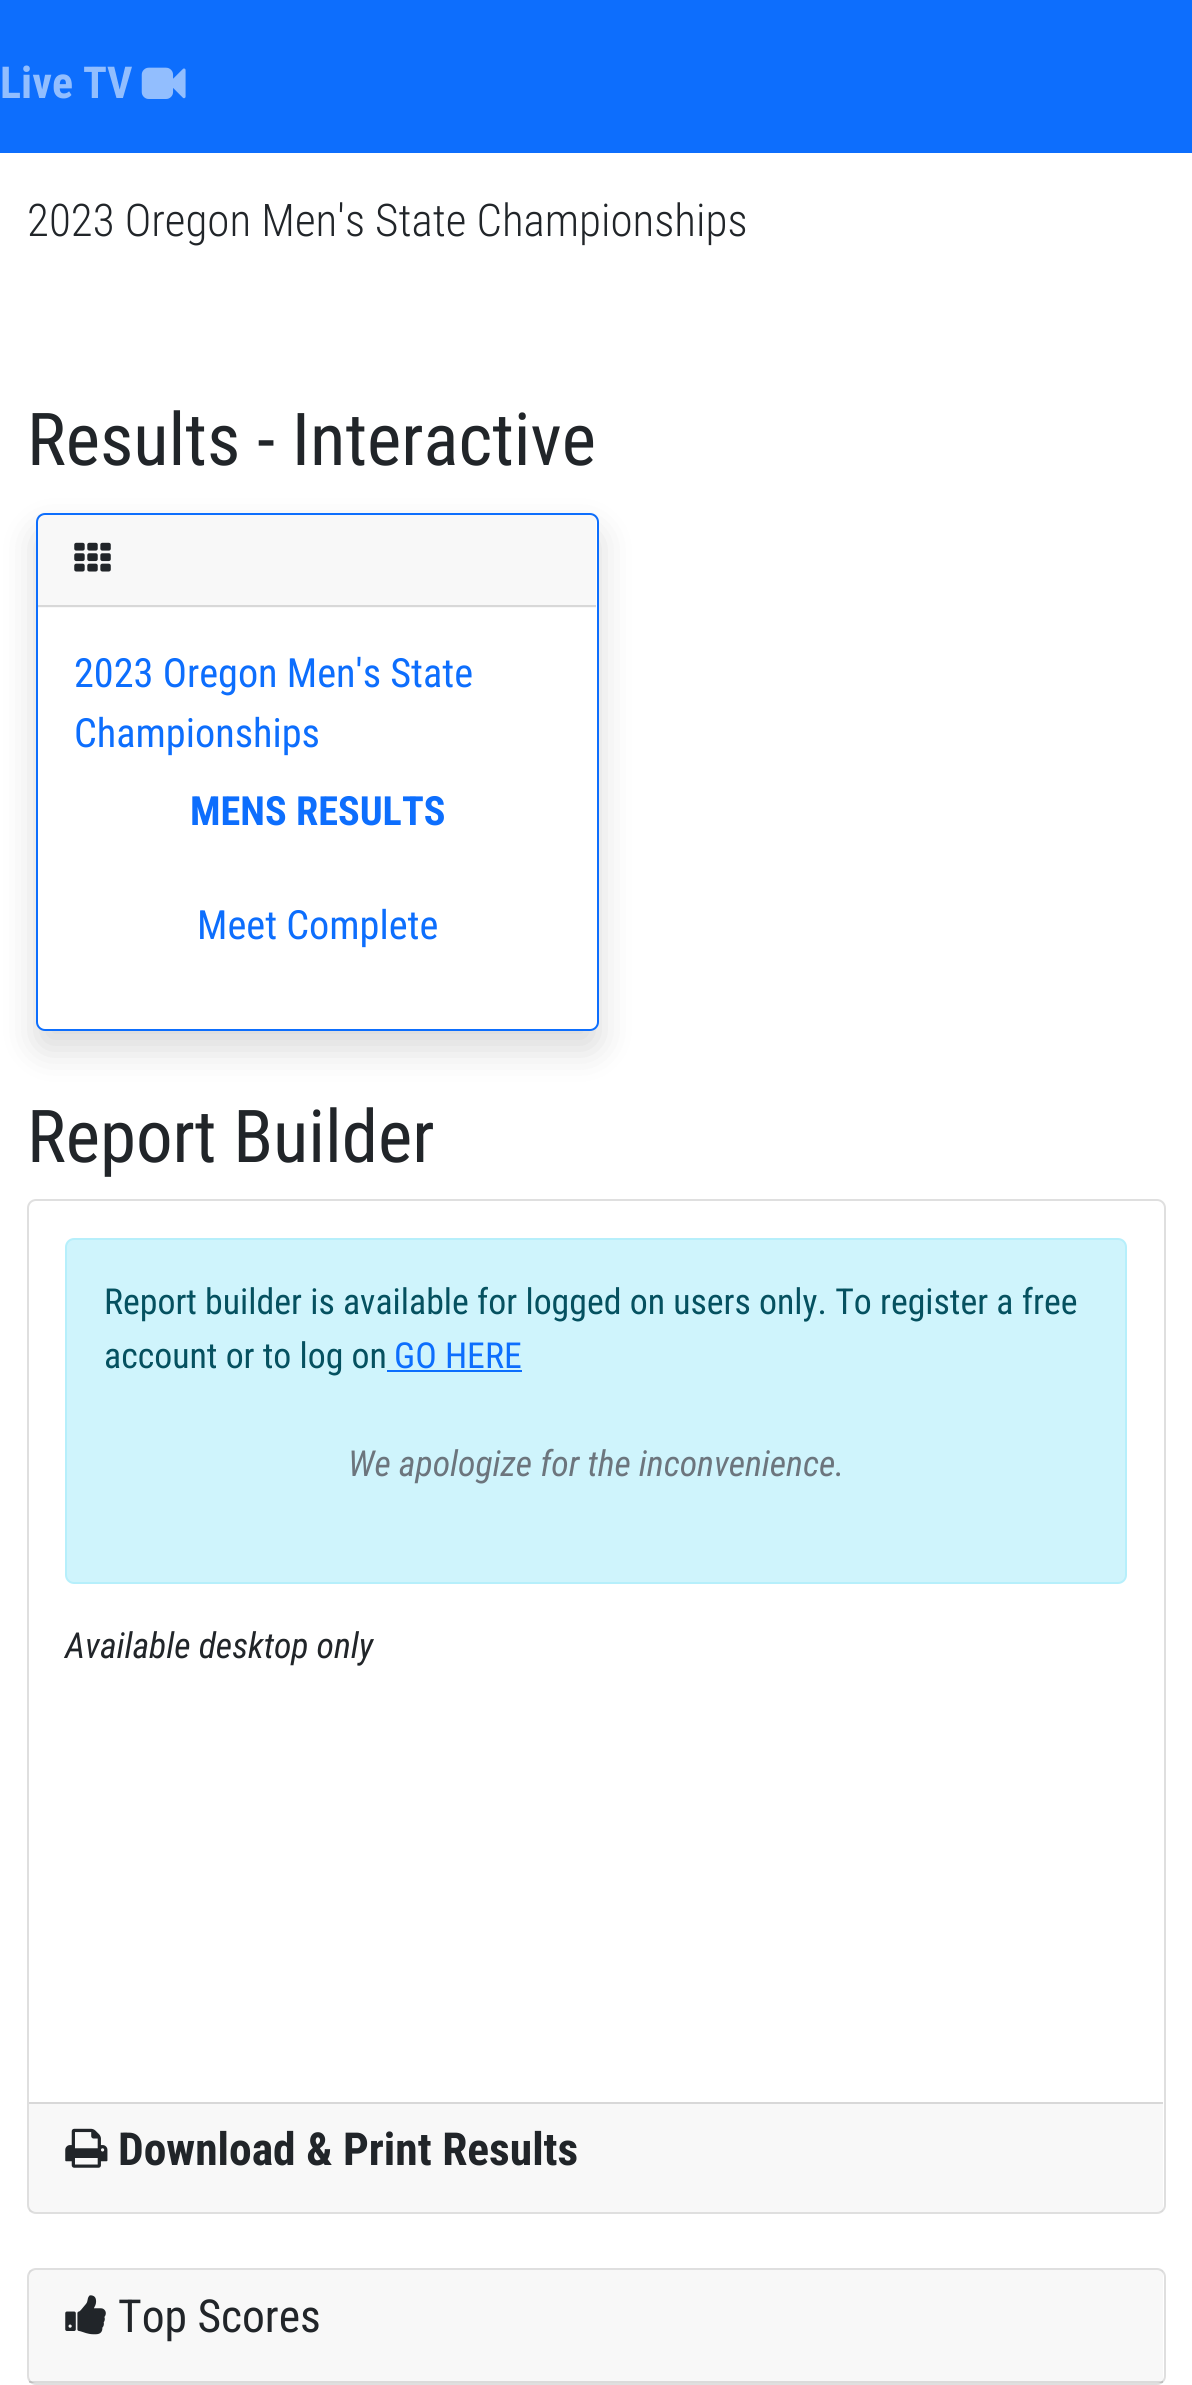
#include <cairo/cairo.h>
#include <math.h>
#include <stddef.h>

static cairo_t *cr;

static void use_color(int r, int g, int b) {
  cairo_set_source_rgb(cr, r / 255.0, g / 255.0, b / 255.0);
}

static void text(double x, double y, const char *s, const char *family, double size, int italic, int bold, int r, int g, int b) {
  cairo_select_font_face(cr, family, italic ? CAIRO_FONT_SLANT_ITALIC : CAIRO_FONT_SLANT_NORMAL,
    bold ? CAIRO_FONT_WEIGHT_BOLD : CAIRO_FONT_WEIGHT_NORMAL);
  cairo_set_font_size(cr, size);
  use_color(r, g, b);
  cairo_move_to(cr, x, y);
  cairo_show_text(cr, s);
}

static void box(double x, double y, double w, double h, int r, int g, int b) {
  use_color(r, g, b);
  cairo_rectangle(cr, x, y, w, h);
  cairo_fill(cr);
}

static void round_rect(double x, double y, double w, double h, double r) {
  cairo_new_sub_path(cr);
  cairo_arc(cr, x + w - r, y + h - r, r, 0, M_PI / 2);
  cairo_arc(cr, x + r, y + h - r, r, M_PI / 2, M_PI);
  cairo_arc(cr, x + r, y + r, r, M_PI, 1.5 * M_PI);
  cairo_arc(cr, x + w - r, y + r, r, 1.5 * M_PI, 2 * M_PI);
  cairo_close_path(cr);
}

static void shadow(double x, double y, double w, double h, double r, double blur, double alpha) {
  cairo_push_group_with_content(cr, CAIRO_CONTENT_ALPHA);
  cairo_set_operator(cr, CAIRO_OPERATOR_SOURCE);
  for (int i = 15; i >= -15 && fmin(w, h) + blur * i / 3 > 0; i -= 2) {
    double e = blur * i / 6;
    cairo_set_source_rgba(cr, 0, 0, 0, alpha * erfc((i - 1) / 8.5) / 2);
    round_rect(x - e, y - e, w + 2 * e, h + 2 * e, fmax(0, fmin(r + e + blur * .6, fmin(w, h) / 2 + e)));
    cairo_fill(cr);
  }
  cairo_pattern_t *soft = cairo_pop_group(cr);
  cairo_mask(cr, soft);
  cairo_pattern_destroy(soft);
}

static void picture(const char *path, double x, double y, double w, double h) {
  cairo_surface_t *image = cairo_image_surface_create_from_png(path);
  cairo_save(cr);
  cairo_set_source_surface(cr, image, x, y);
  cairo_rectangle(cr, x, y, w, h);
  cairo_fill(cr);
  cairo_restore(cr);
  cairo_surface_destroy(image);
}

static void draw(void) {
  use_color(255, 255, 255);
  cairo_paint(cr);
  box(0, 0, 1192, 153, 13, 110, 253);
  picture("img_01.png", 141, 67, 45, 32);
  use_color(0, 0, 0);
  shadow(36, 531, 563, 518, 9, 18, 0.15);
  use_color(255, 255, 255);
  round_rect(37, 514, 561, 516, 8);
  cairo_fill_preserve(cr);
  use_color(13, 110, 253);
  cairo_stroke(cr);
  cairo_set_source_rgba(cr, 0, 0, 0, 0.03);
  cairo_rectangle(cr, 38, 515, 558, 93);
  cairo_fill(cr);
  box(38, 605, 558, 2, 216, 216, 216);
  picture("img_02.png", 74, 542, 37, 30);
  round_rect(28, 1200, 1137, 1013, 8);
  use_color(223, 223, 223);
  cairo_stroke(cr);
  use_color(207, 244, 252);
  round_rect(66, 1239, 1060, 344, 8);
  cairo_fill_preserve(cr);
  use_color(182, 239, 251);
  cairo_stroke(cr);
  box(387, 1370, 135, 2, 13, 110, 253);
  cairo_set_source_rgba(cr, 0, 0, 0, 0.03);
  cairo_rectangle(cr, 29, 2104, 1134, 108);
  cairo_fill(cr);
  box(29, 2102, 1134, 2, 216, 216, 216);
  picture("img_03.png", 65, 2128, 43, 40);
  round_rect(28, 2269, 1137, 115, 8);
  use_color(223, 223, 223);
  cairo_stroke(cr);
  cairo_set_source_rgba(cr, 0, 0, 0, 0.03);
  cairo_rectangle(cr, 29, 2270, 1134, 113);
  cairo_fill(cr);
  cairo_set_source_rgba(cr, 0, 0, 0, 0.12);
  cairo_rectangle(cr, 29, 2381, 1134, 2);
  cairo_fill(cr);
  picture("img_04.png", 65, 2295, 41, 40);
  text(0, 98, "Live TV", "Roboto Condensed", 44, 0, 1, 146, 190, 254);
  text(27, 236, "2023 Oregon Men's State Championships", "Roboto Condensed Light", 45, 0, 0, 33, 37, 41);
  text(27, 465, "Results - Interactive", "Roboto Condensed", 73, 0, 0, 33, 37, 41);
  text(74, 687, "2023 Oregon Men's State", "Roboto Condensed", 40.25, 0, 0, 13, 110, 253);
  text(74, 747, "Championships", "Roboto Condensed", 40.25, 0, 0, 13, 110, 253);
  text(190, 825, "MENS RESULTS", "Roboto Condensed", 40.25, 0, 1, 13, 110, 253);
  text(197, 939, "Meet Complete", "Roboto Condensed", 40.25, 0, 0, 13, 110, 253);
  text(27, 1162, "Report Builder", "Roboto Condensed", 73, 0, 0, 33, 37, 41);
  text(104, 1314, "Report builder is available for logged on users only. To register a free", "Roboto Condensed", 35.8, 0, 0, 5, 81, 96);
  text(104, 1368, "account or to log on", "Roboto Condensed", 35.8, 0, 0, 5, 81, 96);
  text(394, 1368, "GO HERE", "Roboto Condensed", 35.8, 0, 0, 13, 110, 253);
  text(348, 1476, "We apologize for the inconvenience.", "Roboto Condensed", 35.8, 1, 0, 108, 117, 125);
  text(65, 1658, "Available desktop only", "Roboto Condensed", 35.8, 1, 0, 33, 37, 41);
  text(118, 2165, "Download & Print Results", "Roboto Condensed", 45.5, 0, 1, 33, 37, 41);
  text(118, 2332, "Top Scores", "Roboto Condensed", 45.5, 0, 0, 33, 37, 41);
}

int main(void) {
  cairo_surface_t *surface = cairo_image_surface_create(CAIRO_FORMAT_RGB24, 1192, 2385);
  cr = cairo_create(surface);
  cairo_font_options_t *options = cairo_font_options_create();
  cairo_font_options_set_hint_metrics(options, CAIRO_HINT_METRICS_OFF);
  cairo_font_options_set_hint_style(options, CAIRO_HINT_STYLE_NONE);
  cairo_set_font_options(cr, options);
  cairo_set_miter_limit(cr, 4);
  draw();
  cairo_surface_write_to_png(surface, "out.png");
  cairo_font_options_destroy(options);
  cairo_destroy(cr);
  cairo_surface_destroy(surface);
  return 0;
}
